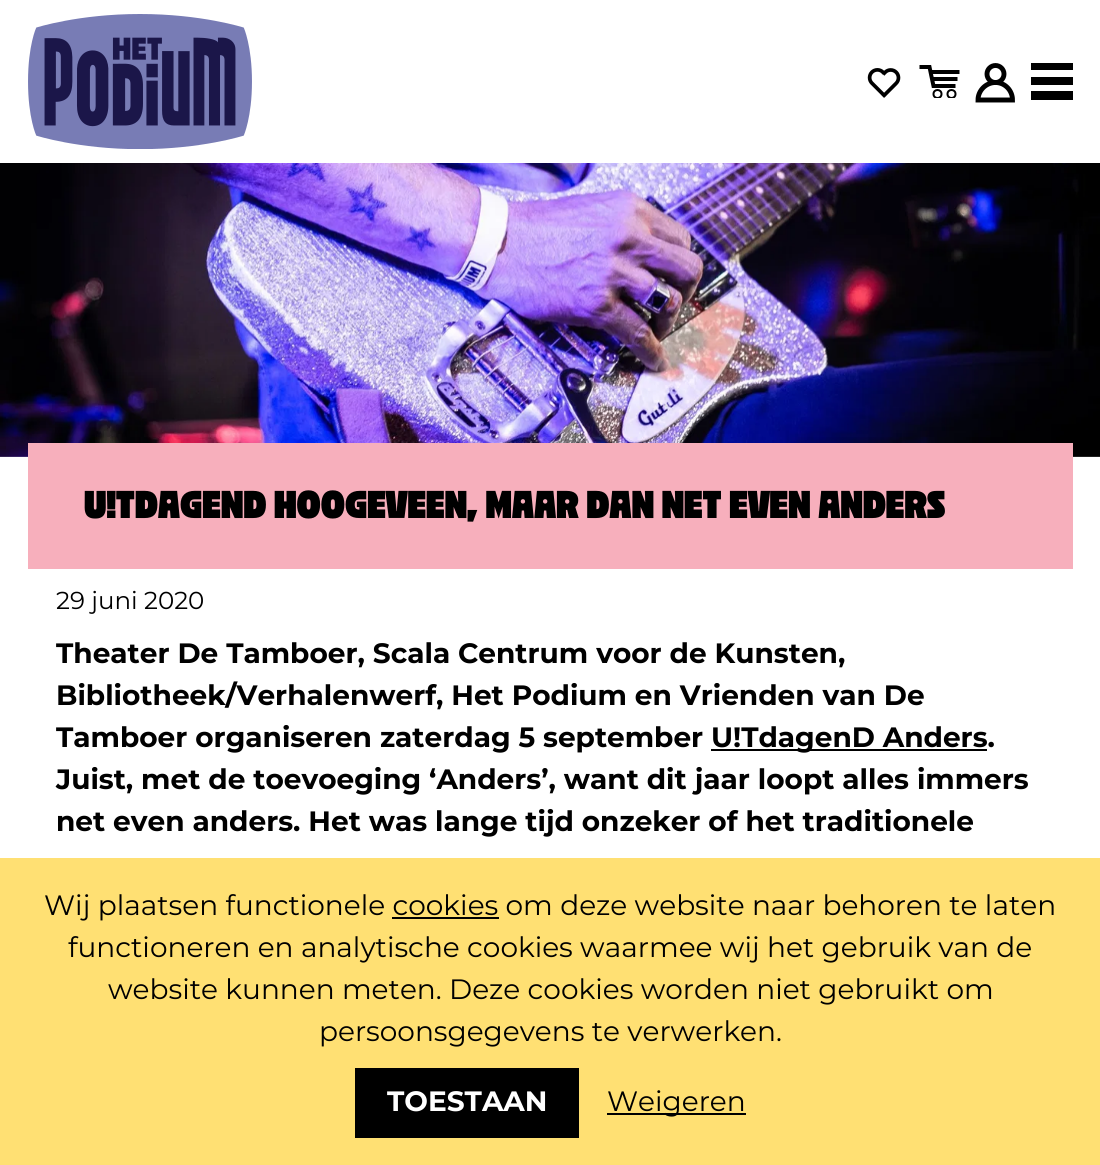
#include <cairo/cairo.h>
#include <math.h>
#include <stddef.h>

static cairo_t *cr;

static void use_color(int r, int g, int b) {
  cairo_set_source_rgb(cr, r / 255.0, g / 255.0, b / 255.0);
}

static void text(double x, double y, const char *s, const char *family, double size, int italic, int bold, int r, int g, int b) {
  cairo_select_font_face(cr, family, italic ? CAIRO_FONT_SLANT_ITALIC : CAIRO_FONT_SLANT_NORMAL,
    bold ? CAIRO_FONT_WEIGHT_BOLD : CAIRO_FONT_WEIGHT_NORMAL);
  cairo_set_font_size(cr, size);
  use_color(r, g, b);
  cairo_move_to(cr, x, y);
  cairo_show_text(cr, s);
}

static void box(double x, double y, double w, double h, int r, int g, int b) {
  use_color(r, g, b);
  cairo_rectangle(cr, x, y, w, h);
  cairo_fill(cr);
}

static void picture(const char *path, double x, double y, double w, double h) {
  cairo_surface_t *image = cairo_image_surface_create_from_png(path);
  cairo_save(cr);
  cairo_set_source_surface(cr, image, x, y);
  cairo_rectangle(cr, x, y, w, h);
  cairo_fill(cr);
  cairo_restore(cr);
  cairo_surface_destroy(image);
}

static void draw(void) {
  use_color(255, 255, 255);
  cairo_paint(cr);
  picture("img_01.png", 28, 14, 224, 135);
  picture("img_02.png", 867, 68, 34, 30);
  cairo_new_path(cr);
  cairo_move_to(cr, 919.5, 67);
  cairo_line_to(cr, 929.5, 67);
  cairo_line_to(cr, 932, 79);
  cairo_move_to(cr, 955.5, 86);
  cairo_line_to(cr, 933.5, 86);
  cairo_line_to(cr, 932, 79);
  cairo_move_to(cr, 957.5, 79);
  cairo_line_to(cr, 932, 79);
  cairo_move_to(cr, 959.5, 72);
  cairo_line_to(cr, 930.5, 72);
  use_color(0, 0, 0);
  cairo_set_line_width(cr, 4);
  cairo_stroke(cr);
  cairo_save(cr);
  cairo_rectangle(cr, 919, 65, 42, 33);
  cairo_clip(cr);
  cairo_arc(cr, 937.5, 94, 4, 0, 2 * M_PI);
  cairo_set_line_width(cr, 2);
  cairo_stroke(cr);
  cairo_arc(cr, 951.5, 94, 4, 0, 2 * M_PI);
  cairo_stroke(cr);
  cairo_restore(cr);
  cairo_arc(cr, 995.5, 74, 8.5, 0, 2 * M_PI);
  cairo_set_line_width(cr, 4.9);
  cairo_stroke(cr);
  cairo_new_path(cr);
  cairo_move_to(cr, 995.5, 82.5);
  cairo_curve_to(cr, 986, 82.5, 978, 90.5, 978, 100);
  cairo_line_to(cr, 1012.5, 100);
  cairo_curve_to(cr, 1012.5, 90.5, 1005, 82.5, 995.5, 82.5);
  cairo_close_path(cr);
  cairo_stroke(cr);
  box(1031, 77, 42, 8, 0, 0, 0);
  box(1031, 91, 42, 9, 0, 0, 0);
  box(1031, 63, 42, 7, 0, 0, 0);
  picture("img_03.png", 0, 163, 1100, 294);
  box(28, 443, 1045, 126, 247, 175, 188);
  box(711, 749, 276, 2, 0, 0, 0);
  box(0, 858, 1100, 307, 255, 224, 115);
  box(392, 917, 107, 2, 0, 0, 0);
  box(355, 1068, 224, 70, 0, 0, 0);
  box(607, 1113, 139, 2, 0, 0, 0);
  text(84, 518, "U!TDAGEND HOOGEVEEN, MAAR DAN NET EVEN ANDERS", "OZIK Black", 42, 0, 0, 0, 0, 0);
  text(56, 609, "29 juni 2020", "Montserrat", 24.5, 0, 0, 0, 0, 0);
  text(56, 663, "Theater De Tamboer, Scala Centrum voor de Kunsten,", "Montserrat", 28, 0, 1, 0, 0, 0);
  text(56, 705, "Bibliotheek/Verhalenwerf, Het Podium en Vrienden van De", "Montserrat", 28, 0, 1, 0, 0, 0);
  text(56, 747, "Tamboer organiseren zaterdag 5 september", "Montserrat", 28, 0, 1, 0, 0, 0);
  text(711, 747, "U!TdagenD Anders.", "Montserrat", 28, 0, 1, 0, 0, 0);
  text(56, 789, "Juist, met de toevoeging ‘Anders’, want dit jaar loopt alles immers", "Montserrat", 28, 0, 1, 0, 0, 0);
  text(56, 831, "net even anders. Het was lange tijd onzeker of het traditionele", "Montserrat", 28, 0, 1, 0, 0, 0);
  text(44, 915, "Wij plaatsen functionele cookies om deze website naar behoren te laten", "Montserrat", 28, 0, 0, 0, 0, 0);
  text(68, 957, "functioneren en analytische cookies waarmee wij het gebruik van de", "Montserrat", 28, 0, 0, 0, 0, 0);
  text(108, 999, "website kunnen meten. Deze cookies worden niet gebruikt om", "Montserrat", 28, 0, 0, 0, 0, 0);
  text(319, 1041, "persoonsgegevens te verwerken.", "Montserrat", 28, 0, 0, 0, 0, 0);
  text(387, 1111, "TOESTAAN", "Montserrat", 28, 0, 1, 255, 255, 255);
  text(607, 1111, "Weigeren", "Montserrat", 28, 0, 0, 0, 0, 0);
}

int main(void) {
  cairo_surface_t *surface = cairo_image_surface_create(CAIRO_FORMAT_RGB24, 1100, 1165);
  cr = cairo_create(surface);
  cairo_font_options_t *options = cairo_font_options_create();
  cairo_font_options_set_hint_metrics(options, CAIRO_HINT_METRICS_OFF);
  cairo_font_options_set_hint_style(options, CAIRO_HINT_STYLE_NONE);
  cairo_set_font_options(cr, options);
  cairo_set_miter_limit(cr, 4);
  draw();
  cairo_surface_write_to_png(surface, "out.png");
  cairo_font_options_destroy(options);
  cairo_destroy(cr);
  cairo_surface_destroy(surface);
  return 0;
}
